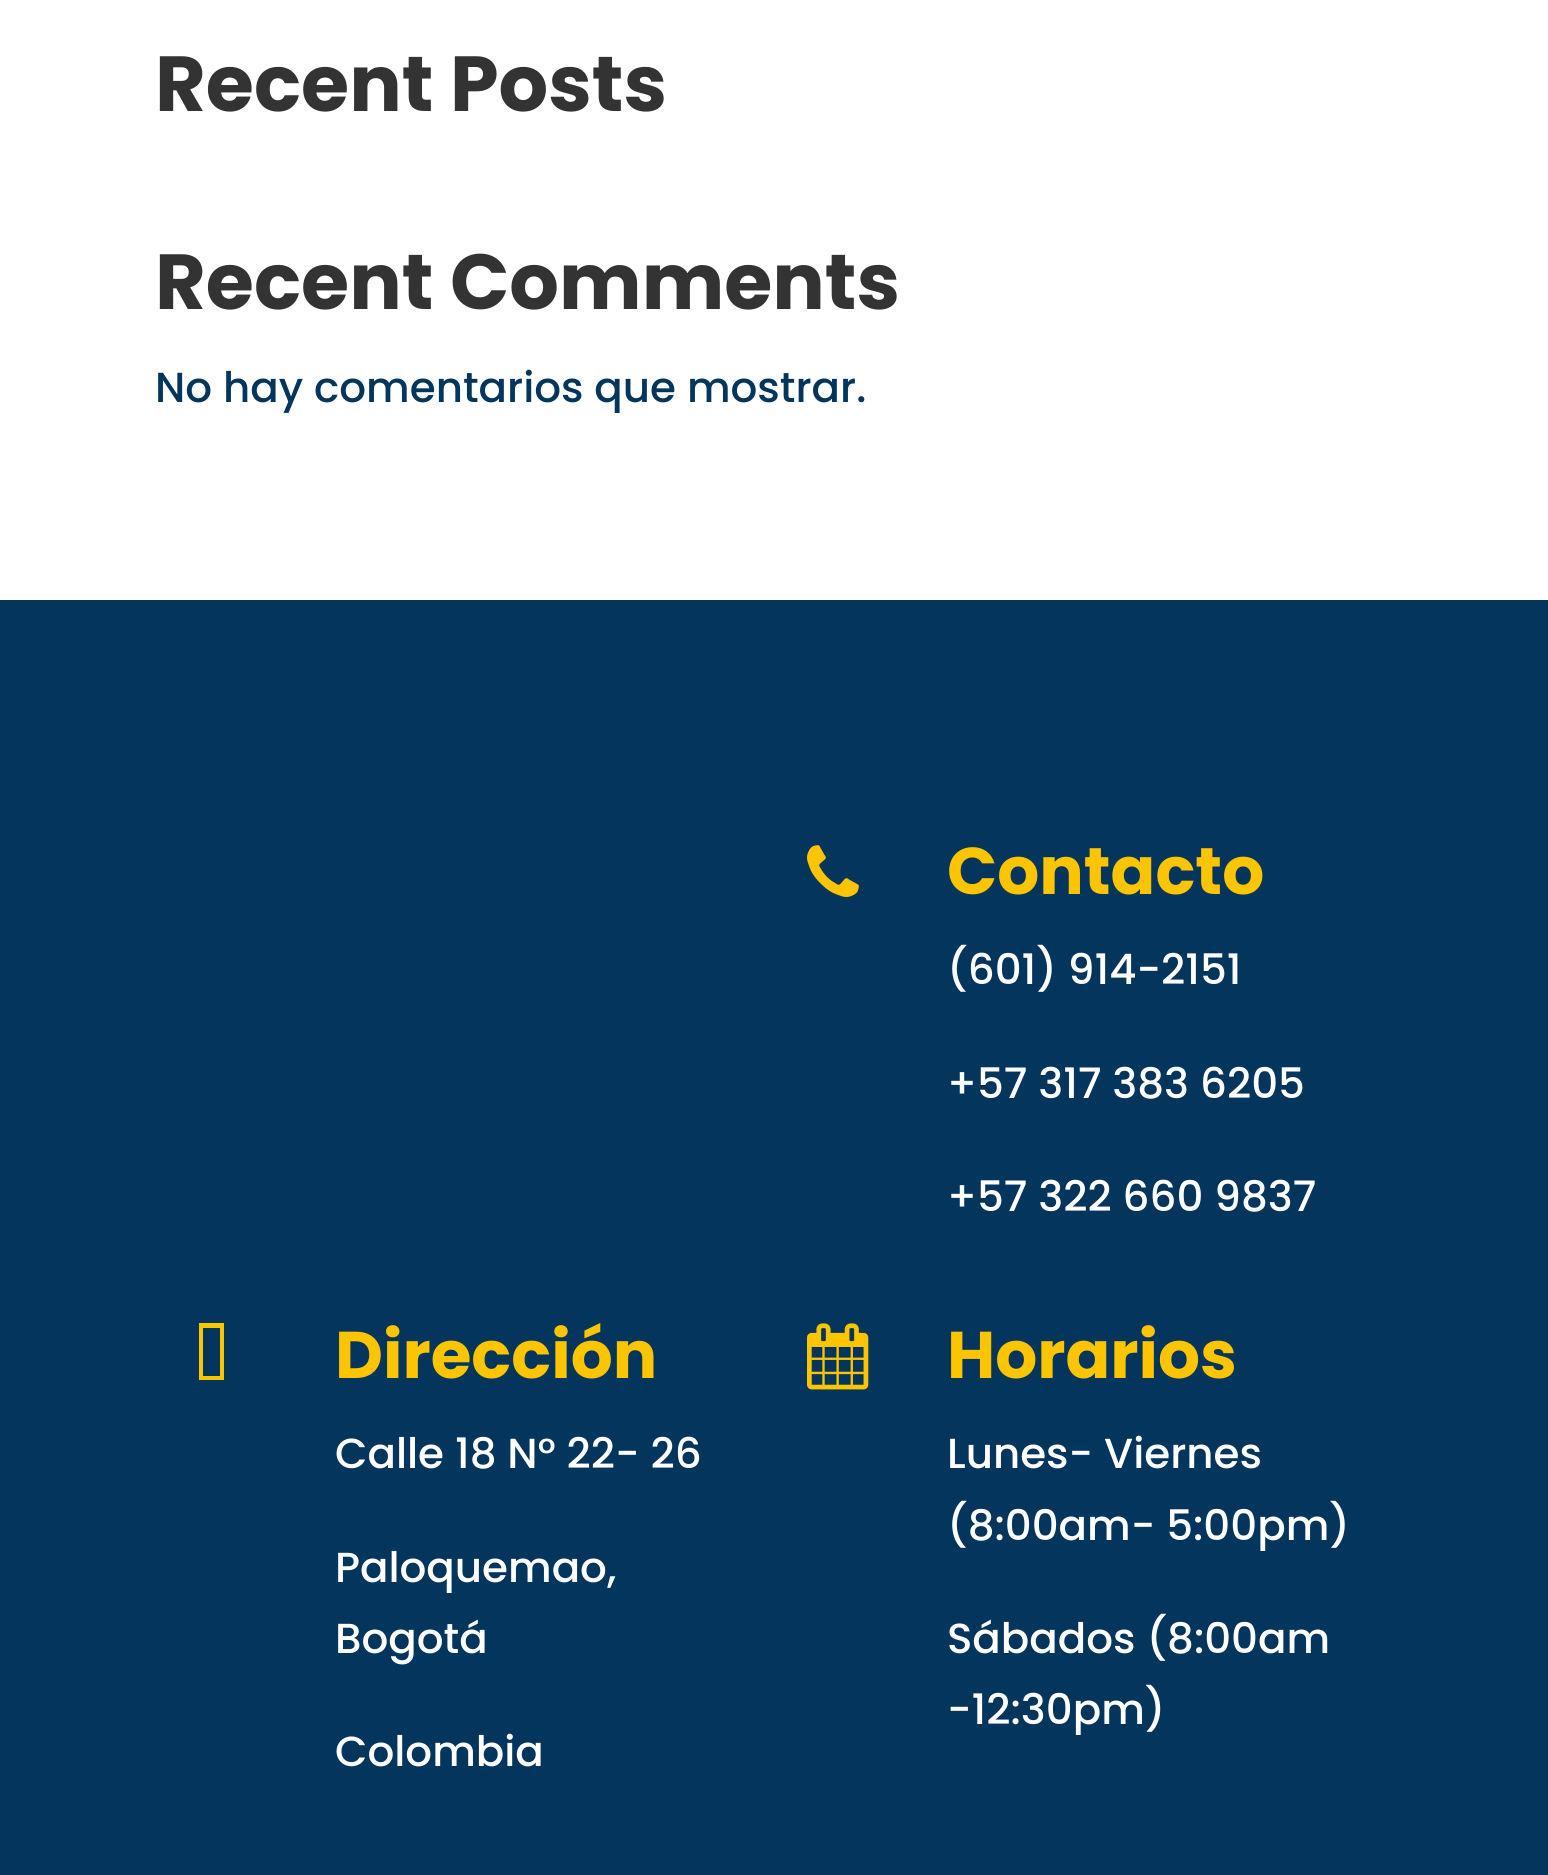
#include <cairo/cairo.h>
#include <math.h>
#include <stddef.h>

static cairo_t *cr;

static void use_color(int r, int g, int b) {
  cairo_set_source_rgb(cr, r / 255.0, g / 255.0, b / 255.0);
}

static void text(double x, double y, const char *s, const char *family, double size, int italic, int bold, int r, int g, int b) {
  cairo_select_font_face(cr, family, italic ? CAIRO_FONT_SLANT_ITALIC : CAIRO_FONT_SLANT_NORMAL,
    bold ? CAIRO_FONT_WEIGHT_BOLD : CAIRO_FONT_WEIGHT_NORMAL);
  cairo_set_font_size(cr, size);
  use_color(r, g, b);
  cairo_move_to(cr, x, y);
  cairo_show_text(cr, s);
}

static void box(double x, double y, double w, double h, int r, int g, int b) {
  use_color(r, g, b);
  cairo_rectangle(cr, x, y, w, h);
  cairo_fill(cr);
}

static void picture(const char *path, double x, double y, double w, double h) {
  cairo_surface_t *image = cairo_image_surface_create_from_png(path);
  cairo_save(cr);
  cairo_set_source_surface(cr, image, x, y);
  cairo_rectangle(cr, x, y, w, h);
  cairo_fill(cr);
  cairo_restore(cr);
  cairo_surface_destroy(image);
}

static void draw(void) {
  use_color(255, 255, 255);
  cairo_paint(cr);
  box(0, 600, 1548, 1275, 3, 53, 93);
  picture("img_01.png", 807, 845, 52, 52);
  use_color(252, 197, 0);
  cairo_new_path(cr);
  cairo_move_to(cr, 203, 1376);
  cairo_line_to(cr, 203, 1328);
  cairo_line_to(cr, 220, 1328);
  cairo_line_to(cr, 220, 1376);
  cairo_close_path(cr);
  cairo_move_to(cr, 199, 1380);
  cairo_line_to(cr, 224, 1380);
  cairo_line_to(cr, 224, 1323);
  cairo_line_to(cr, 199, 1323);
  cairo_close_path(cr);
  cairo_fill(cr);
  picture("img_02.png", 807, 1323, 62, 67);
  text(155, 111, "Recent Posts", "Poppins", 78, 0, 1, 51, 51, 51);
  text(155, 309, "Recent Comments", "Poppins", 78, 0, 1, 51, 51, 51);
  text(155, 402, "No hay comentarios que mostrar.", "Poppins Medium", 42, 0, 0, 3, 53, 93);
  text(947, 894, "Contacto", "Poppins", 66, 0, 1, 252, 197, 0);
  text(947, 984, "(601) 914-2151", "Poppins Medium", 42, 0, 0, 255, 255, 255);
  text(947, 1098, "+57 317 383 6205", "Poppins Medium", 42, 0, 0, 255, 255, 255);
  text(947, 1211, "+57 322 660 9837", "Poppins Medium", 42, 0, 0, 255, 255, 255);
  text(335, 1378, "Dirección", "Poppins", 66, 0, 1, 252, 197, 0);
  text(335, 1468, "Calle 18 N° 22- 26", "Poppins Medium", 42, 0, 0, 255, 255, 255);
  text(335, 1582, "Paloquemao,", "Poppins Medium", 42, 0, 0, 255, 255, 255);
  text(335, 1653, "Bogotá", "Poppins Medium", 42, 0, 0, 255, 255, 255);
  text(335, 1766, "Colombia", "Poppins Medium", 42, 0, 0, 255, 255, 255);
  text(947, 1378, "Horarios", "Poppins", 66, 0, 1, 252, 197, 0);
  text(947, 1468, "Lunes- Viernes", "Poppins Medium", 42, 0, 0, 255, 255, 255);
  text(947, 1540, "(8:00am- 5:00pm)", "Poppins Medium", 42, 0, 0, 255, 255, 255);
  text(947, 1653, "Sábados (8:00am", "Poppins Medium", 42, 0, 0, 255, 255, 255);
  text(947, 1724, "-12:30pm)", "Poppins Medium", 42, 0, 0, 255, 255, 255);
}

int main(void) {
  cairo_surface_t *surface = cairo_image_surface_create(CAIRO_FORMAT_RGB24, 1548, 1875);
  cr = cairo_create(surface);
  cairo_font_options_t *options = cairo_font_options_create();
  cairo_font_options_set_hint_metrics(options, CAIRO_HINT_METRICS_OFF);
  cairo_font_options_set_hint_style(options, CAIRO_HINT_STYLE_NONE);
  cairo_set_font_options(cr, options);
  cairo_set_miter_limit(cr, 4);
  draw();
  cairo_surface_write_to_png(surface, "out.png");
  cairo_font_options_destroy(options);
  cairo_destroy(cr);
  cairo_surface_destroy(surface);
  return 0;
}
